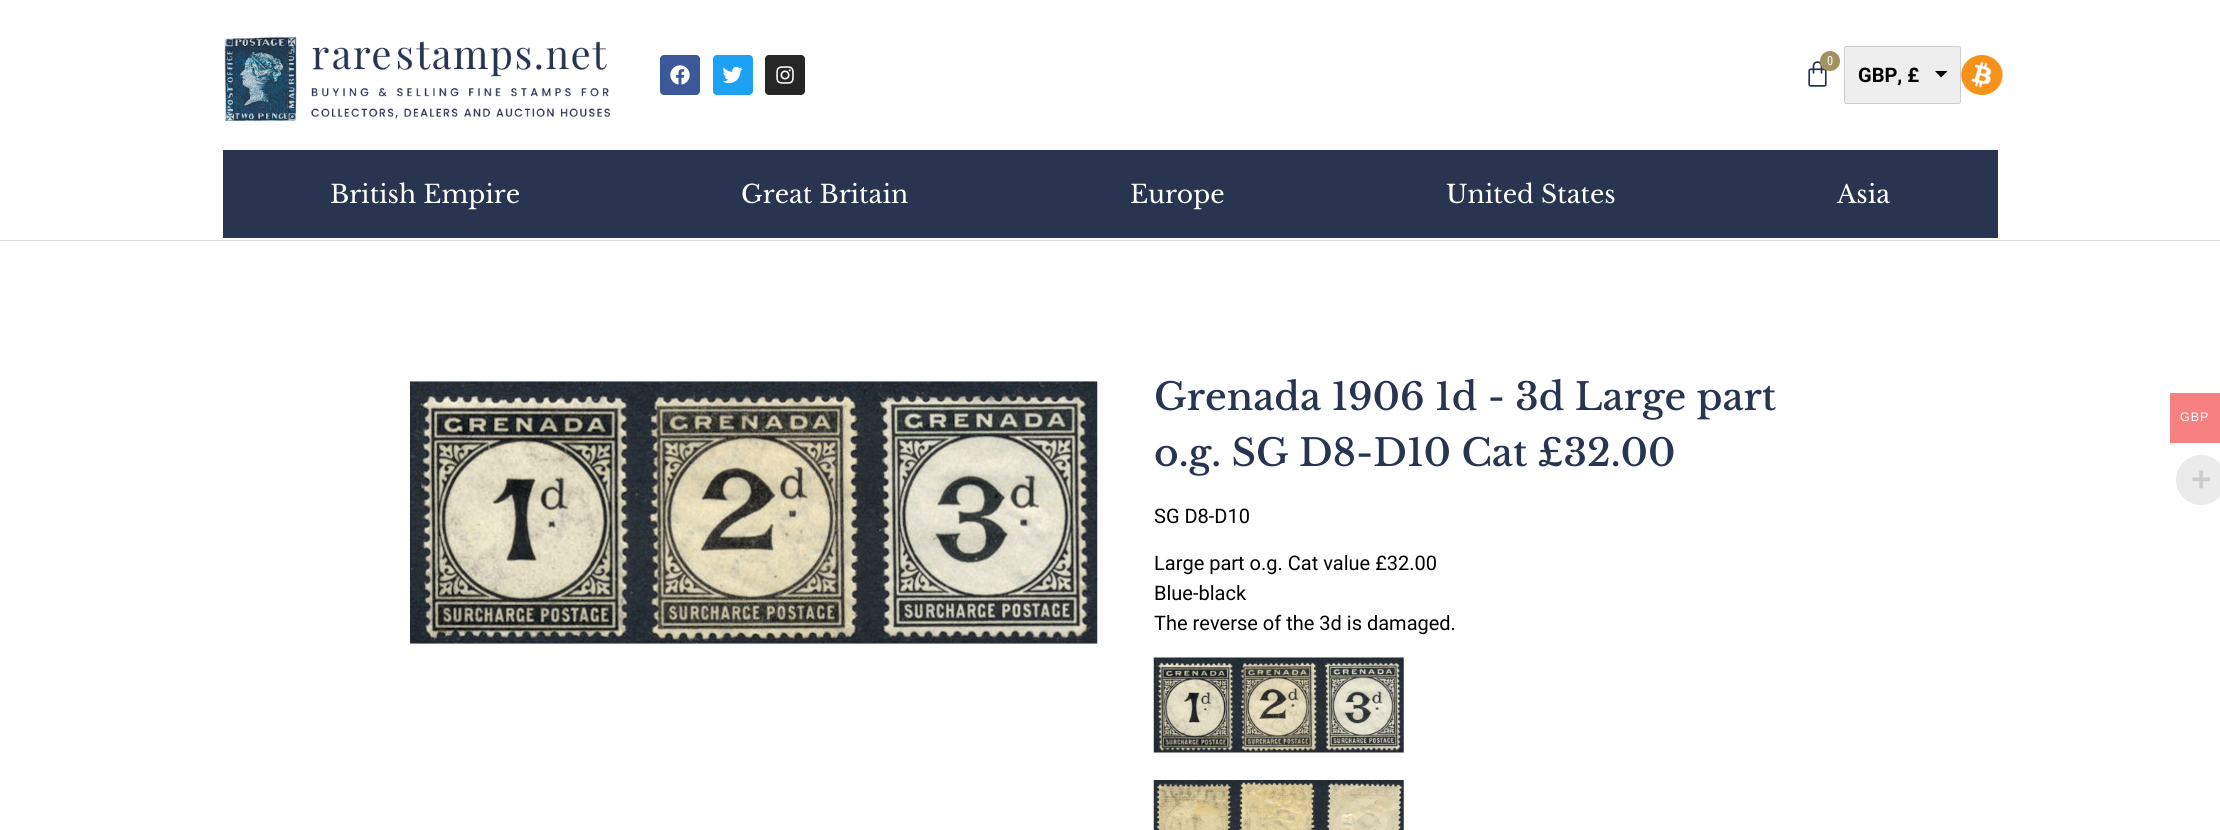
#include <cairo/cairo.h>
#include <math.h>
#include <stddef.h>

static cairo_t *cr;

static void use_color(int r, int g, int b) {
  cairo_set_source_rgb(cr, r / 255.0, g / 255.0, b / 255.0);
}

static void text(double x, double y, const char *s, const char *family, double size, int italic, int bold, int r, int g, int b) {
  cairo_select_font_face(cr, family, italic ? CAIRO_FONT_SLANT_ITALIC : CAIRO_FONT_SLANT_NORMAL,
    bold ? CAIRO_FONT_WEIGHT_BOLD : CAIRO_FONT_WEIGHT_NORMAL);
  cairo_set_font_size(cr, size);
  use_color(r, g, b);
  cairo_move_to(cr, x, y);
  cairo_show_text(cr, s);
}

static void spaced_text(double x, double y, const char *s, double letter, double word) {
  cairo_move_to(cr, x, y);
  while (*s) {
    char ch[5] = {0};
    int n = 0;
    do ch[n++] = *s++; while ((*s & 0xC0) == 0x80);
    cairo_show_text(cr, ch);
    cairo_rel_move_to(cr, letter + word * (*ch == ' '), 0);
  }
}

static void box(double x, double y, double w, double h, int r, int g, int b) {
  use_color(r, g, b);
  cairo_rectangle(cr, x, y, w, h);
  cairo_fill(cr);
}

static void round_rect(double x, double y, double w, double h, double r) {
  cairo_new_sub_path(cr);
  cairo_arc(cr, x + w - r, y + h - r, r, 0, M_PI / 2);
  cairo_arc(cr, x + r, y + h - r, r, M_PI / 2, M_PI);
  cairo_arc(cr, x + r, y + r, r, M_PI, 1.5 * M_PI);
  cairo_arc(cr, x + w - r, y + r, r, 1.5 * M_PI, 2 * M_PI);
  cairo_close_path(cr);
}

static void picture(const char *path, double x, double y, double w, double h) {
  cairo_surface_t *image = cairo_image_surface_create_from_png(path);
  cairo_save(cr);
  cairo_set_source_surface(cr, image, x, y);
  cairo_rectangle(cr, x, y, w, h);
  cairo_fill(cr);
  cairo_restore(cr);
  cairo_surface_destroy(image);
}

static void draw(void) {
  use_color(255, 255, 255);
  cairo_paint(cr);
  picture("img_01.png", 224, 36, 386, 86);
  use_color(59, 89, 152);
  round_rect(660, 55, 40, 40, 4);
  cairo_fill(cr);
  picture("img_02.png", 670, 65, 20, 20);
  use_color(29, 161, 242);
  round_rect(713, 55, 40, 40, 4);
  cairo_fill(cr);
  picture("img_03.png", 722, 66, 21, 18);
  use_color(38, 38, 38);
  round_rect(765, 55, 40, 40, 4);
  cairo_fill(cr);
  picture("img_04.png", 776, 66, 18, 18);
  picture("img_05.png", 1808, 61, 19, 26);
  use_color(163, 146, 95);
  cairo_arc(cr, 1830, 61, 10, 0, 2 * M_PI);
  cairo_fill(cr);
  picture("img_06.png", 1961, 55, 42, 40);
  use_color(238, 238, 238);
  round_rect(1844.5, 46.5, 116, 57, 2);
  cairo_fill_preserve(cr);
  use_color(204, 204, 204);
  cairo_set_line_width(cr, 1);
  cairo_stroke(cr);
  use_color(0, 0, 0);
  cairo_new_path(cr);
  cairo_move_to(cr, 1935, 71);
  cairo_line_to(cr, 1947.5, 71);
  cairo_line_to(cr, 1941, 77.5);
  cairo_close_path(cr);
  cairo_fill(cr);
  box(223, 150, 1775, 88, 41, 52, 81);
  box(0, 240, 2220, 1, 222, 222, 222);
  picture("img_07.png", 410, 381, 688, 263);
  picture("img_08.png", 1153, 657, 251, 96);
  picture("img_09.png", 1153, 780, 251, 50);
  box(2170, 393, 50, 50, 247, 128, 128);
  use_color(235, 235, 235);
  cairo_arc(cr, 2201, 480, 25, 0, 2 * M_PI);
  cairo_fill(cr);
  text(1827, 65, "0", "Roboto Condensed", 12.5, 0, 0, 255, 255, 255);
  text(1858, 82, "GBP, £", "Roboto", 20, 0, 1, 0, 0, 0);
  text(330, 203, "British Empire", "Libre Baskerville", 25, 0, 0, 255, 255, 255);
  text(741, 203, "Great Britain", "Libre Baskerville", 25, 0, 0, 255, 255, 255);
  text(1130, 203, "Europe", "Libre Baskerville", 25, 0, 0, 255, 255, 255);
  text(1446, 203, "United States", "Libre Baskerville", 25, 0, 0, 255, 255, 255);
  text(1837, 203, "Asia", "Libre Baskerville", 25, 0, 0, 255, 255, 255);
  text(1154, 410, "Grenada 1906 1d - 3d Large part", "Libre Baskerville Medium", 37.5, 0, 0, 41, 52, 81);
  text(1154, 466, "o.g. SG D8-D10 Cat £32.00", "Libre Baskerville Medium", 37.5, 0, 0, 41, 52, 81);
  text(1154, 523, "SG D8-D10", "Roboto", 20, 0, 0, 0, 0, 0);
  text(1154, 570, "Large part o.g. Cat value £32.00", "Roboto", 20, 0, 0, 0, 0, 0);
  text(1154, 600, "Blue-black", "Roboto", 20, 0, 0, 0, 0, 0);
  text(1154, 630, "The reverse of the 3d is damaged.", "Roboto", 20, 0, 0, 0, 0, 0);
  cairo_select_font_face(cr, "Liberation Sans", CAIRO_FONT_SLANT_NORMAL, CAIRO_FONT_WEIGHT_NORMAL);
  cairo_set_font_size(cr, 12.5);
  use_color(255, 255, 255);
  spaced_text(2180, 421, "GBP", 1, 0);
  text(2191, 491, "+", "Liberation Sans", 35, 0, 1, 204, 204, 204);
}

int main(void) {
  cairo_surface_t *surface = cairo_image_surface_create(CAIRO_FORMAT_RGB24, 2220, 830);
  cr = cairo_create(surface);
  cairo_font_options_t *options = cairo_font_options_create();
  cairo_font_options_set_hint_metrics(options, CAIRO_HINT_METRICS_OFF);
  cairo_font_options_set_hint_style(options, CAIRO_HINT_STYLE_NONE);
  cairo_set_font_options(cr, options);
  cairo_set_miter_limit(cr, 4);
  draw();
  cairo_surface_write_to_png(surface, "out.png");
  cairo_font_options_destroy(options);
  cairo_destroy(cr);
  cairo_surface_destroy(surface);
  return 0;
}
